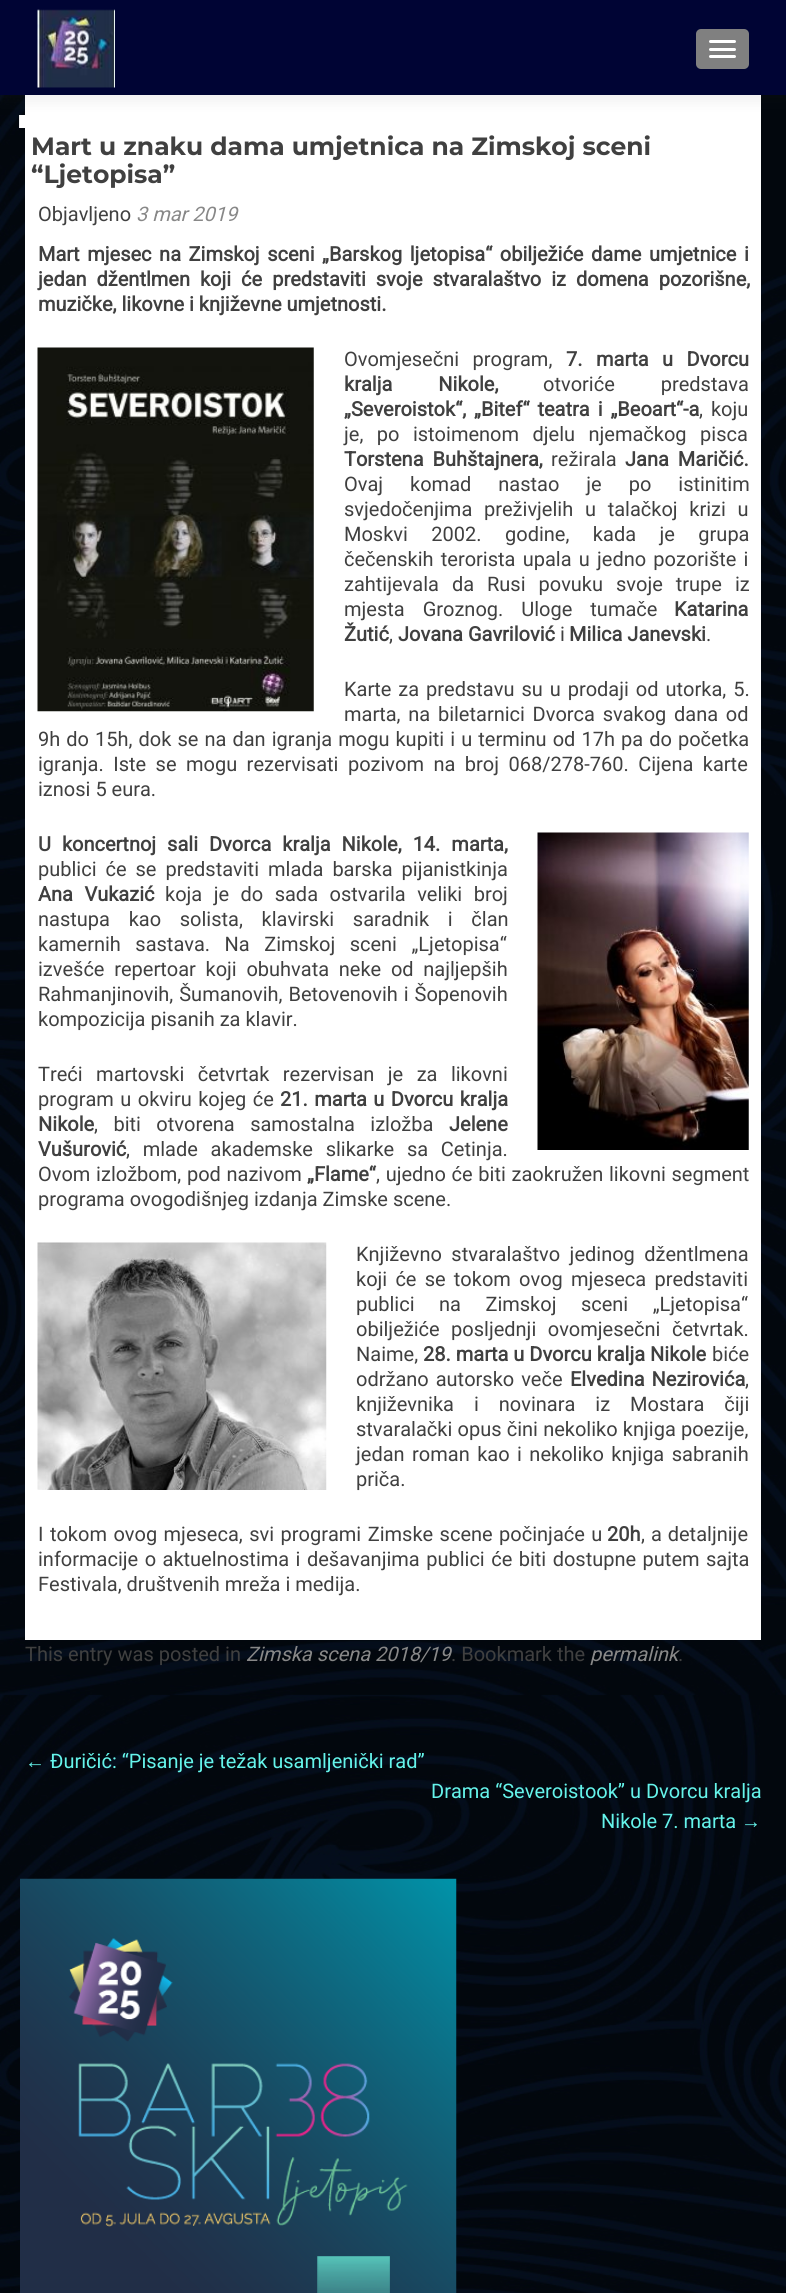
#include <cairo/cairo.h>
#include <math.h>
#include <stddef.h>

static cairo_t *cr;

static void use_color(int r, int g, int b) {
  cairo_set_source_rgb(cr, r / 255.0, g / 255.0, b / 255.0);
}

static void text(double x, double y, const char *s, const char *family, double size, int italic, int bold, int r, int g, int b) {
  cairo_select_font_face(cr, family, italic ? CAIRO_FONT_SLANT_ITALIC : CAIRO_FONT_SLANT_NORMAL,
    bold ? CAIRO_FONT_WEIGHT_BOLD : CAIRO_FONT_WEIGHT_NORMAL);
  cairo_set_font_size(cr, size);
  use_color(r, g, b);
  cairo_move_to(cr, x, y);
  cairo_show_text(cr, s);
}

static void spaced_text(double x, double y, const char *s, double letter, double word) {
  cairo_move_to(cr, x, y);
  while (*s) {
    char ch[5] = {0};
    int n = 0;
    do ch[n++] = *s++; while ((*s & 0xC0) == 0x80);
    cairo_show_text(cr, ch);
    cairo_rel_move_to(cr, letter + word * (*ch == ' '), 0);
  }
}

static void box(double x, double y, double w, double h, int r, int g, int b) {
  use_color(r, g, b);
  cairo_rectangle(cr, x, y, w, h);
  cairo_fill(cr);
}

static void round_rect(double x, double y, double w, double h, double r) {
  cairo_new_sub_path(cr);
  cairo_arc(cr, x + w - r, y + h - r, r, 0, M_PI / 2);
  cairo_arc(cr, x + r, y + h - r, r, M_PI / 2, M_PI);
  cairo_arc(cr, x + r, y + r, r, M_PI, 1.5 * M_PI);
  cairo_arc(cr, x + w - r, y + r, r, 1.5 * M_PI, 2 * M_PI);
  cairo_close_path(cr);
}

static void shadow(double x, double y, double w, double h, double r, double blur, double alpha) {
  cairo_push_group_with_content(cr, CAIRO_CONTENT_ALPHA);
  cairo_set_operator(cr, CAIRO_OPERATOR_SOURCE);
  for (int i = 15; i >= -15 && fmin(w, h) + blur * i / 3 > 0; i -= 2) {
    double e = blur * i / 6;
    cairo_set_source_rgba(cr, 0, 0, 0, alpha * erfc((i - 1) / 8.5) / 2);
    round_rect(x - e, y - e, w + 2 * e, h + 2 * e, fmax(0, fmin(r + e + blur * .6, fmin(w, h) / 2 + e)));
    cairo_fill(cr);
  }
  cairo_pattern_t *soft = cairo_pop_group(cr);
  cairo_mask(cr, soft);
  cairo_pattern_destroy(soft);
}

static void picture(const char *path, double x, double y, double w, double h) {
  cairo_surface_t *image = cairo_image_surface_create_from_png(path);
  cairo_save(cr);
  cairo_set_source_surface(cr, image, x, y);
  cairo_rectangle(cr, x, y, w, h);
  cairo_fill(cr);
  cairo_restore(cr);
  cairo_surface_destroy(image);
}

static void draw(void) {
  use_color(255, 255, 255);
  cairo_paint(cr);
  picture("img_02.png", 0, 95, 786, 2198);
  box(20, 115, 5, 13, 255, 255, 255);
  box(19, 115, 1, 13, 242, 242, 242);
  box(25, 95, 736, 1545, 255, 255, 255);
  use_color(50, 50, 50);
  shadow(0, 6, 786, 95, 0, 7, 0.08);
  box(0, 0, 786, 95, 0, 4, 52);
  picture("img_01.png", 37, 9, 78, 79);
  use_color(128, 128, 128);
  round_rect(696, 29, 53, 40, 5);
  cairo_fill(cr);
  use_color(255, 255, 255);
  round_rect(709, 40, 27, 3, 1.5);
  cairo_fill(cr);
  round_rect(709, 48, 27, 3, 1.5);
  cairo_fill(cr);
  round_rect(709, 55, 27, 3, 1.5);
  cairo_fill(cr);
  picture("img_03.png", 20, 1878, 437, 415);
  picture("img_04.png", 37, 347, 277, 365);
  picture("img_05.png", 537, 832, 212, 318);
  picture("img_06.png", 37, 1242, 290, 248);
  text(31, 155, "Mart u znaku dama umjetnica na Zimskoj sceni", "Montserrat", 25, 0, 1, 64, 64, 64);
  text(31, 183, "“Ljetopisa”", "Montserrat", 25, 0, 1, 64, 64, 64);
  text(38, 221, "Objavljeno", "Roboto", 20, 0, 0, 64, 64, 64);
  text(136, 221, "3 mar 2019", "Roboto", 20, 1, 0, 136, 136, 136);
  cairo_select_font_face(cr, "Roboto", CAIRO_FONT_SLANT_NORMAL, CAIRO_FONT_WEIGHT_BOLD);
  use_color(64, 64, 64);
  spaced_text(38, 261, "Mart mjesec na Zimskoj sceni „Barskog ljetopisa“ obilježiće dame umjetnice i", 0, 2.6);
  spaced_text(38, 286, "jedan džentlmen koji će predstaviti svoje stvaralaštvo iz domena pozorišne,", 0, 5);
  text(38, 311, "muzičke, likovne i književne umjetnosti.", "Roboto", 20, 0, 1, 64, 64, 64);
  cairo_select_font_face(cr, "Roboto", CAIRO_FONT_SLANT_NORMAL, CAIRO_FONT_WEIGHT_NORMAL);
  spaced_text(344, 366, "Ovomjesečni program,", 0, 8.5);
  cairo_select_font_face(cr, "Roboto", CAIRO_FONT_SLANT_NORMAL, CAIRO_FONT_WEIGHT_BOLD);
  spaced_text(566, 366, "7. marta u Dvorcu", 0, 8.5);
  spaced_text(344, 391, "kralja Nikole,", 0, 41);
  cairo_select_font_face(cr, "Roboto", CAIRO_FONT_SLANT_NORMAL, CAIRO_FONT_WEIGHT_NORMAL);
  spaced_text(543, 391, "otvoriće predstava", 0, 41);
  cairo_select_font_face(cr, "Roboto", CAIRO_FONT_SLANT_NORMAL, CAIRO_FONT_WEIGHT_BOLD);
  spaced_text(344, 416, "„Severoistok“, „Bitef“ teatra i „Beoart“-a", 0, 3);
  cairo_select_font_face(cr, "Roboto", CAIRO_FONT_SLANT_NORMAL, CAIRO_FONT_WEIGHT_NORMAL);
  spaced_text(699, 416, ", koju", 0, 3);
  spaced_text(344, 441, "je, po istoimenom djelu njemačkog pisca", 0, 8.5);
  cairo_select_font_face(cr, "Roboto", CAIRO_FONT_SLANT_NORMAL, CAIRO_FONT_WEIGHT_BOLD);
  spaced_text(344, 466, "Torstena Buhštajnera,", 0, 4);
  text(551, 466, "režirala", "Roboto", 20, 0, 0, 64, 64, 64);
  cairo_select_font_face(cr, "Roboto", CAIRO_FONT_SLANT_NORMAL, CAIRO_FONT_WEIGHT_BOLD);
  spaced_text(625, 466, "Jana Maričić.", 0, 4);
  cairo_select_font_face(cr, "Roboto", CAIRO_FONT_SLANT_NORMAL, CAIRO_FONT_WEIGHT_NORMAL);
  spaced_text(344, 491, "Ovaj komad nastao je po istinitim", 0, 22);
  spaced_text(344, 516, "svjedočenjima preživjelih u talačkoj krizi u", 0, 6.75);
  spaced_text(344, 541, "Moskvi 2002. godine, kada je grupa", 0, 18.5);
  spaced_text(344, 566, "čečenskih terorista upala u jedno pozorište i", 0, 2.25);
  spaced_text(344, 591, "zahtijevala da Rusi povuku svoje trupe iz", 0, 8);
  spaced_text(344, 616, "mjesta Groznog. Uloge tumače", 0, 13);
  text(674, 616, "Katarina", "Roboto", 20, 0, 1, 64, 64, 64);
  text(344, 641, "Žutić", "Roboto", 20, 0, 1, 64, 64, 64);
  text(389, 641, ",", "Roboto", 20, 0, 0, 64, 64, 64);
  text(398, 641, "Jovana Gavrilović", "Roboto", 20, 0, 1, 64, 64, 64);
  text(560, 641, "i", "Roboto", 20, 0, 0, 64, 64, 64);
  text(569, 641, "Milica Janevski", "Roboto", 20, 0, 1, 64, 64, 64);
  text(706, 641, ".", "Roboto", 20, 0, 0, 64, 64, 64);
  spaced_text(344, 696, "Karte za predstavu su u prodaji od utorka, 5.", 0, 2);
  spaced_text(344, 721, "marta, na biletarnici Dvorca svakog dana od", 0, 2.75);
  spaced_text(38, 746, "9h do 15h, dok se na dan igranja mogu kupiti i u terminu od 17h pa do početka", 0, 1.1);
  spaced_text(38, 771, "igranja. Iste se mogu rezervisati pozivom na broj 068/278-760. Cijena karte", 0, 4.5);
  text(38, 796, "iznosi 5 eura.", "Roboto", 20, 0, 0, 64, 64, 64);
  cairo_select_font_face(cr, "Roboto", CAIRO_FONT_SLANT_NORMAL, CAIRO_FONT_WEIGHT_BOLD);
  spaced_text(38, 851, "U koncertnoj sali Dvorca kralja Nikole, 14. marta,", 0, 6);
  cairo_select_font_face(cr, "Roboto", CAIRO_FONT_SLANT_NORMAL, CAIRO_FONT_WEIGHT_NORMAL);
  spaced_text(38, 876, "publici će se predstaviti mlada barska pijanistkinja", 0, 4);
  cairo_select_font_face(cr, "Roboto", CAIRO_FONT_SLANT_NORMAL, CAIRO_FONT_WEIGHT_BOLD);
  spaced_text(38, 901, "Ana Vukazić", 0, 6.5);
  cairo_select_font_face(cr, "Roboto", CAIRO_FONT_SLANT_NORMAL, CAIRO_FONT_WEIGHT_NORMAL);
  spaced_text(165, 901, "koja je do sada ostvarila veliki broj", 0, 6.5);
  spaced_text(38, 926, "nastupa kao solista, klavirski saradnik i član", 0, 13.75);
  spaced_text(38, 951, "kamernih sastava. Na Zimskoj sceni „Ljetopisa“", 0, 9.5);
  spaced_text(38, 976, "izvešće repertoar koji obuhvata neke od najljepših", 0, 4.75);
  spaced_text(38, 1001, "Rahmanjinovih, Šumanovih, Betovenovih i Šopenovih", 0, 1);
  text(38, 1026, "kompozicija pisanih za klavir.", "Roboto", 20, 0, 0, 64, 64, 64);
  spaced_text(38, 1081, "Treći martovski četvrtak rezervisan je za likovni", 0, 8.5);
  spaced_text(38, 1106, "program u okviru kojeg će", 0, 1.5);
  cairo_select_font_face(cr, "Roboto", CAIRO_FONT_SLANT_NORMAL, CAIRO_FONT_WEIGHT_BOLD);
  spaced_text(280, 1106, "21. marta u Dvorcu kralja", 0, 1.5);
  text(38, 1131, "Nikole", "Roboto", 20, 0, 1, 64, 64, 64);
  cairo_select_font_face(cr, "Roboto", CAIRO_FONT_SLANT_NORMAL, CAIRO_FONT_WEIGHT_NORMAL);
  spaced_text(94, 1131, ", biti otvorena samostalna izložba", 0, 10.5);
  text(449, 1131, "Jelene", "Roboto", 20, 0, 1, 64, 64, 64);
  text(38, 1156, "Vušurović", "Roboto", 20, 0, 1, 64, 64, 64);
  cairo_select_font_face(cr, "Roboto", CAIRO_FONT_SLANT_NORMAL, CAIRO_FONT_WEIGHT_NORMAL);
  spaced_text(126, 1156, ", mlade akademske slikarke sa Cetinja.", 0, 7.75);
  spaced_text(38, 1181, "Ovom izložbom, pod nazivom", 0, 0.75);
  text(307, 1181, "„Flame“", "Roboto", 20, 0, 1, 64, 64, 64);
  cairo_select_font_face(cr, "Roboto", CAIRO_FONT_SLANT_NORMAL, CAIRO_FONT_WEIGHT_NORMAL);
  spaced_text(376, 1181, ", ujedno će biti zaokružen likovni segment", 0, 0.75);
  text(38, 1206, "programa ovogodišnjeg izdanja Zimske scene.", "Roboto", 20, 0, 0, 64, 64, 64);
  spaced_text(356, 1261, "Književno stvaralaštvo jedinog džentlmena", 0, 4.5);
  spaced_text(356, 1286, "koji će se tokom ovog mjeseca predstaviti", 0, 3.25);
  spaced_text(356, 1311, "publici na Zimskoj sceni „Ljetopisa“", 0, 19.5);
  spaced_text(356, 1336, "obilježiće posljednji ovomjesečni četvrtak.", 0, 6.5);
  text(356, 1361, "Naime,", "Roboto", 20, 0, 0, 64, 64, 64);
  text(423, 1361, "28. marta u Dvorcu kralja Nikole", "Roboto", 20, 0, 1, 64, 64, 64);
  text(712, 1361, "biće", "Roboto", 20, 0, 0, 64, 64, 64);
  spaced_text(356, 1386, "održano autorsko veče", 0, 2);
  cairo_select_font_face(cr, "Roboto", CAIRO_FONT_SLANT_NORMAL, CAIRO_FONT_WEIGHT_BOLD);
  spaced_text(570, 1386, "Elvedina Nezirovića", 0, 2);
  text(745, 1386, ",", "Roboto", 20, 0, 0, 64, 64, 64);
  spaced_text(356, 1411, "književnika i novinara iz Mostara čiji", 0, 15);
  spaced_text(356, 1436, "stvaralački opus čini nekoliko knjiga poezije,", 0, 0.25);
  spaced_text(356, 1461, "jedan roman kao i nekoliko knjiga sabranih", 0, 2.5);
  text(356, 1486, "priča.", "Roboto", 20, 0, 0, 64, 64, 64);
  spaced_text(38, 1541, "I tokom ovog mjeseca, svi programi Zimske scene počinjaće u", 0, 1.5);
  text(607, 1541, "20h", "Roboto", 20, 0, 1, 64, 64, 64);
  cairo_select_font_face(cr, "Roboto", CAIRO_FONT_SLANT_NORMAL, CAIRO_FONT_WEIGHT_NORMAL);
  spaced_text(641, 1541, ", a detaljnije", 0, 1);
  spaced_text(38, 1566, "informacije o aktuelnostima i dešavanjima publici će biti dostupne putem sajta", 0, 1.5);
  text(38, 1591, "Festivala, društvenih mreža i medija.", "Roboto", 20, 0, 0, 64, 64, 64);
  text(25, 1661, "This entry was posted in", "Roboto", 20, 0, 0, 64, 64, 64);
  text(246, 1661, "Zimska scena 2018/19", "Roboto", 20, 1, 0, 136, 136, 136);
  text(451, 1661, ". Bookmark the", "Roboto", 20, 0, 0, 64, 64, 64);
  text(590, 1661, "permalink", "Roboto", 20, 1, 0, 136, 136, 136);
  text(678, 1661, ".", "Roboto", 20, 0, 0, 64, 64, 64);
  text(25, 1768, "←", "Liberation Sans", 20, 0, 0, 101, 244, 235);
  text(50, 1768, "Đuričić: “Pisanje je težak usamljenički rad”", "Roboto", 20, 0, 0, 101, 244, 235);
  text(431, 1798, "Drama “Severoistook” u Dvorcu kralja", "Roboto", 20, 0, 0, 101, 244, 235);
  text(601, 1828, "Nikole 7. marta", "Roboto", 20, 0, 0, 101, 244, 235);
  text(741, 1828, "→", "Liberation Sans", 20, 0, 0, 101, 244, 235);
}

int main(void) {
  cairo_surface_t *surface = cairo_image_surface_create(CAIRO_FORMAT_RGB24, 786, 2293);
  cr = cairo_create(surface);
  cairo_font_options_t *options = cairo_font_options_create();
  cairo_font_options_set_hint_metrics(options, CAIRO_HINT_METRICS_OFF);
  cairo_font_options_set_hint_style(options, CAIRO_HINT_STYLE_NONE);
  cairo_set_font_options(cr, options);
  cairo_set_miter_limit(cr, 4);
  draw();
  cairo_surface_write_to_png(surface, "out.png");
  cairo_font_options_destroy(options);
  cairo_destroy(cr);
  cairo_surface_destroy(surface);
  return 0;
}
